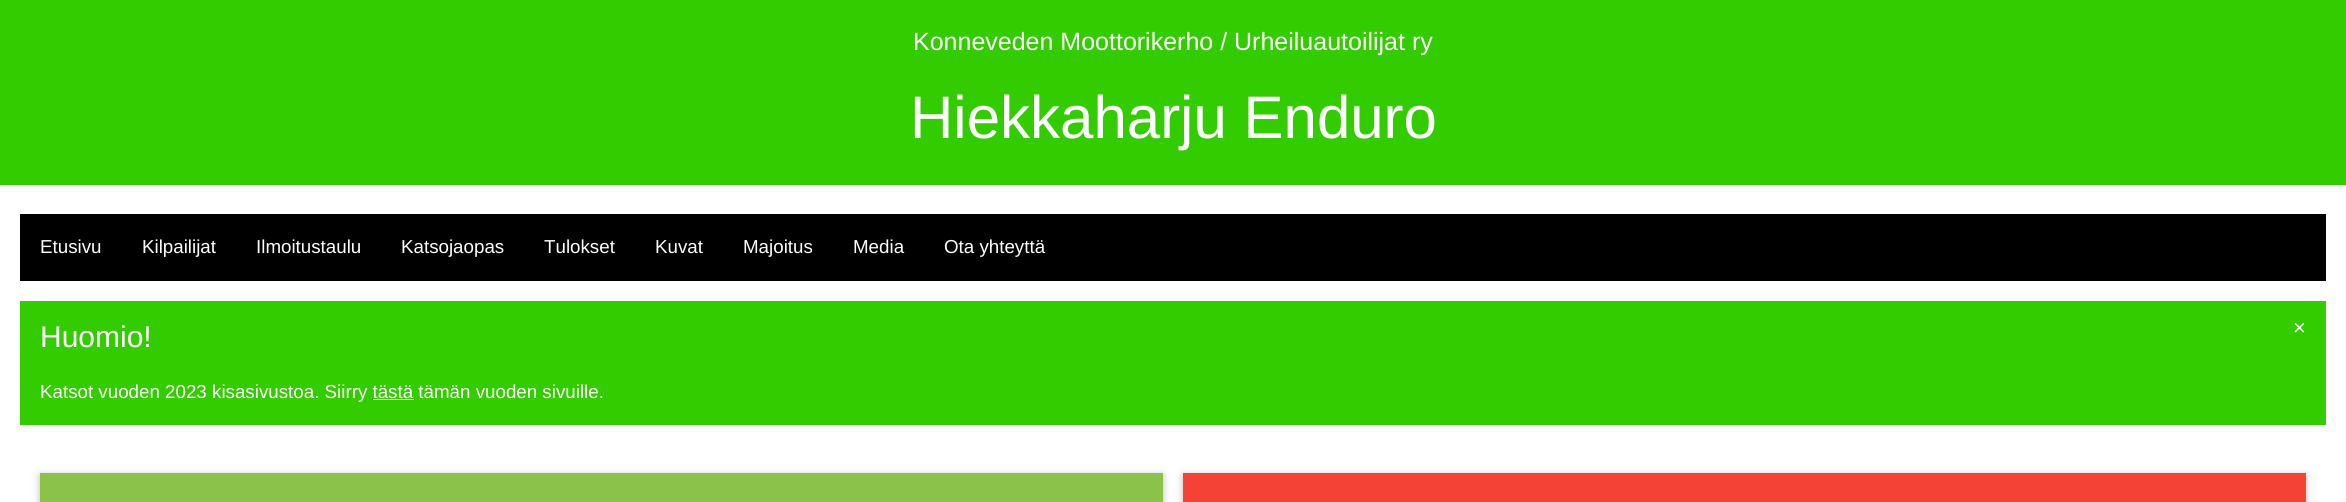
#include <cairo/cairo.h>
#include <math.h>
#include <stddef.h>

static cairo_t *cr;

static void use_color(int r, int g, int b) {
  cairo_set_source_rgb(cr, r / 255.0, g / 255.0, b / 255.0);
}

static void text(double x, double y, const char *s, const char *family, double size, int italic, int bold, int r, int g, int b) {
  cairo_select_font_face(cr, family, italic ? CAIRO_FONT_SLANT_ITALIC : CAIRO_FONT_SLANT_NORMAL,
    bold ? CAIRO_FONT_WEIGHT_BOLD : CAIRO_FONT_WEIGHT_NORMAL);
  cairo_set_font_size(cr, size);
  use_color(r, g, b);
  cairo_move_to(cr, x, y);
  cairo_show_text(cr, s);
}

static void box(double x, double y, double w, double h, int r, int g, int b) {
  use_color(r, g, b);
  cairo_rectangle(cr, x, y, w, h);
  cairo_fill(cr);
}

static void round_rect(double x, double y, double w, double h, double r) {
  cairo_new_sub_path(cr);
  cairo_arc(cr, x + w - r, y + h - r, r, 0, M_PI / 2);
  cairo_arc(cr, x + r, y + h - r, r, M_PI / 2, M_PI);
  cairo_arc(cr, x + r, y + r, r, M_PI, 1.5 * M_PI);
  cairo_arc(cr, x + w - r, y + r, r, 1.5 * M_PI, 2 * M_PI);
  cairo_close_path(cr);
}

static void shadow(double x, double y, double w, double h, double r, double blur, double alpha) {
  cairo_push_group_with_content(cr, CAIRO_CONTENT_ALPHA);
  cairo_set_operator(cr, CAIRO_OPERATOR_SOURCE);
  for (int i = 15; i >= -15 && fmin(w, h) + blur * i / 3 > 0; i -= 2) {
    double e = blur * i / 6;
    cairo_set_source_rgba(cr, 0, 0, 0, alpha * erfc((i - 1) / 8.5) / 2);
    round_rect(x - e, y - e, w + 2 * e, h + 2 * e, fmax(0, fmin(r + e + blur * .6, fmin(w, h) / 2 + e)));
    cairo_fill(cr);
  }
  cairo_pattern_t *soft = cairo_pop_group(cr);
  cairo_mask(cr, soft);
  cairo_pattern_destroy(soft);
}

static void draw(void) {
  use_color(255, 255, 255);
  cairo_paint(cr);
  box(0, 0, 2346, 185, 51, 204, 0);
  box(20, 214, 2306, 67, 0, 0, 0);
  box(20, 301, 2306, 124, 51, 204, 0);
  box(373, 399, 41, 1, 255, 255, 255);
  use_color(0, 0, 0);
  shadow(40, 475, 1123, 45, 0, 6, 0.12);
  shadow(40, 475, 1123, 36, 0, 3, 0.16);
  box(40, 473, 1123, 29, 139, 195, 74);
  use_color(0, 0, 0);
  shadow(1183, 475, 1123, 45, 0, 6, 0.12);
  shadow(1183, 475, 1123, 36, 0, 3, 0.16);
  box(1183, 473, 1123, 29, 244, 67, 54);
  text(913, 50, "Konneveden Moottorikerho / Urheiluautoilijat ry", "Liberation Sans", 25, 0, 0, 255, 255, 255);
  text(910, 138, "Hiekkaharju Enduro", "Liberation Sans", 60, 0, 0, 255, 255, 255);
  text(40, 253, "Etusivu", "Liberation Sans", 18.75, 0, 0, 255, 255, 255);
  text(142, 253, "Kilpailijat", "Liberation Sans", 18.75, 0, 0, 255, 255, 255);
  text(256, 253, "Ilmoitustaulu", "Liberation Sans", 18.75, 0, 0, 255, 255, 255);
  text(401, 253, "Katsojaopas", "Liberation Sans", 18.75, 0, 0, 255, 255, 255);
  text(544, 253, "Tulokset", "Liberation Sans", 18.75, 0, 0, 255, 255, 255);
  text(655, 253, "Kuvat", "Liberation Sans", 18.75, 0, 0, 255, 255, 255);
  text(743, 253, "Majoitus", "Liberation Sans", 18.75, 0, 0, 255, 255, 255);
  text(853, 253, "Media", "Liberation Sans", 18.75, 0, 0, 255, 255, 255);
  text(944, 253, "Ota yhteyttä", "Liberation Sans", 18.75, 0, 0, 255, 255, 255);
  text(40, 347, "Huomio!", "Liberation Sans", 30, 0, 0, 255, 255, 255);
  text(2293, 335, "×", "Liberation Sans", 22, 0, 0, 255, 255, 255);
  text(40, 398, "Katsot vuoden 2023 kisasivustoa. Siirry tästä tämän vuoden sivuille.", "Liberation Sans", 18.75, 0, 0, 255, 255, 255);
}

int main(void) {
  cairo_surface_t *surface = cairo_image_surface_create(CAIRO_FORMAT_RGB24, 2346, 502);
  cr = cairo_create(surface);
  cairo_font_options_t *options = cairo_font_options_create();
  cairo_font_options_set_hint_metrics(options, CAIRO_HINT_METRICS_OFF);
  cairo_font_options_set_hint_style(options, CAIRO_HINT_STYLE_NONE);
  cairo_set_font_options(cr, options);
  cairo_set_miter_limit(cr, 4);
  draw();
  cairo_surface_write_to_png(surface, "out.png");
  cairo_font_options_destroy(options);
  cairo_destroy(cr);
  cairo_surface_destroy(surface);
  return 0;
}
